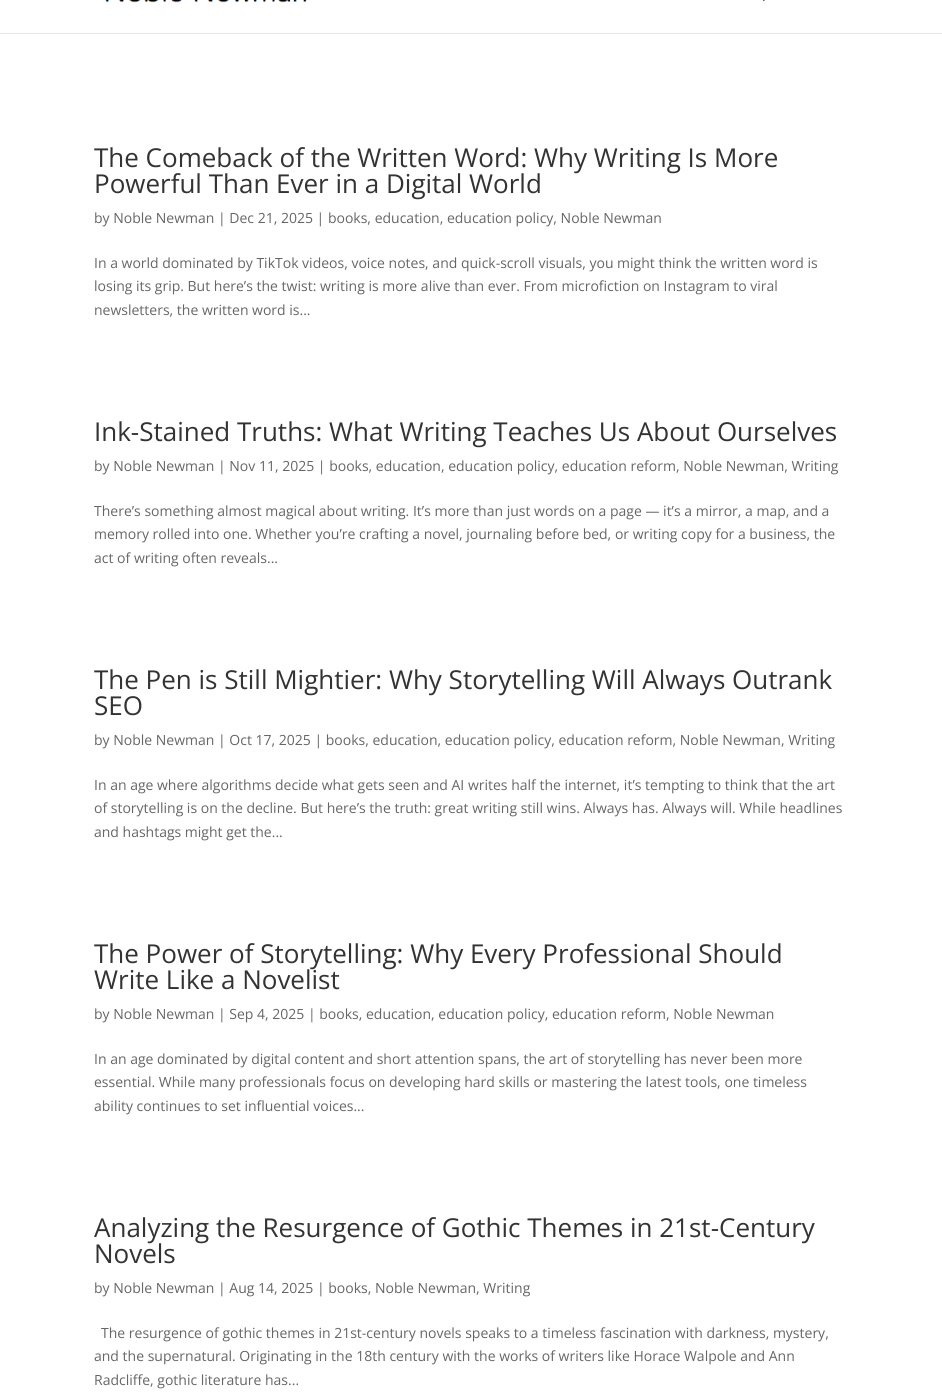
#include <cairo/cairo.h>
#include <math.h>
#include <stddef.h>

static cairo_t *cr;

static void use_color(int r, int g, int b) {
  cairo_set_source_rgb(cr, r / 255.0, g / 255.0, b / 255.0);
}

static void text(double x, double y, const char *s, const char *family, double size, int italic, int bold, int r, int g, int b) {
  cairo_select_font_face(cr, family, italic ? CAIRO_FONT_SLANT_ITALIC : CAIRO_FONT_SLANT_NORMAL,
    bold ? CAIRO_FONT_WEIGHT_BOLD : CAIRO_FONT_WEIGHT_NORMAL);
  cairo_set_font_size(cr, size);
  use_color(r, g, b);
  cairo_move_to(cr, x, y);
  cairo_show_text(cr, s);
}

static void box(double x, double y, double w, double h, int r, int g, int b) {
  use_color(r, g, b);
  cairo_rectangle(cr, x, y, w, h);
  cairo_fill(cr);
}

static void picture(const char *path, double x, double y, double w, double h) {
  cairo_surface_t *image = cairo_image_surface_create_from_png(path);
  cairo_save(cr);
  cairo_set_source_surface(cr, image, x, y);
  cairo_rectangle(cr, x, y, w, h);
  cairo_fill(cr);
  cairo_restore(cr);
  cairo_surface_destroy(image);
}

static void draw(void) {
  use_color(255, 255, 255);
  cairo_paint(cr);
  box(0, 33, 942, 1, 230, 230, 230);
  picture("img_01.png", 105, 0, 202, 3);
  picture("img_02.png", 763, 0, 2, 2);
  text(94, 167, "The Comeback of the Written Word: Why Writing Is More", "Open Sans", 26, 0, 0, 51, 51, 51);
  text(94, 193, "Powerful Than Ever in a Digital World", "Open Sans", 26, 0, 0, 51, 51, 51);
  text(94, 223, "by Noble Newman | Dec 21, 2025 | books, education, education policy, Noble Newman", "Open Sans", 14, 0, 0, 102, 102, 102);
  text(94, 268, "In a world dominated by TikTok videos, voice notes, and quick-scroll visuals, you might think the written word is", "Open Sans", 14, 0, 0, 102, 102, 102);
  text(94, 291, "losing its grip. But here’s the twist: writing is more alive than ever. From microfiction on Instagram to viral", "Open Sans", 14, 0, 0, 102, 102, 102);
  text(94, 315, "newsletters, the written word is...", "Open Sans", 14, 0, 0, 102, 102, 102);
  text(94, 441, "Ink-Stained Truths: What Writing Teaches Us About Ourselves", "Open Sans", 26, 0, 0, 51, 51, 51);
  text(94, 471, "by Noble Newman | Nov 11, 2025 | books, education, education policy, education reform, Noble Newman, Writing", "Open Sans", 14, 0, 0, 102, 102, 102);
  text(94, 516, "There’s something almost magical about writing. It’s more than just words on a page — it’s a mirror, a map, and a", "Open Sans", 14, 0, 0, 102, 102, 102);
  text(94, 539, "memory rolled into one. Whether you’re crafting a novel, journaling before bed, or writing copy for a business, the", "Open Sans", 14, 0, 0, 102, 102, 102);
  text(94, 563, "act of writing often reveals...", "Open Sans", 14, 0, 0, 102, 102, 102);
  text(94, 689, "The Pen is Still Mightier: Why Storytelling Will Always Outrank", "Open Sans", 26, 0, 0, 51, 51, 51);
  text(94, 715, "SEO", "Open Sans", 26, 0, 0, 51, 51, 51);
  text(94, 745, "by Noble Newman | Oct 17, 2025 | books, education, education policy, education reform, Noble Newman, Writing", "Open Sans", 14, 0, 0, 102, 102, 102);
  text(94, 790, "In an age where algorithms decide what gets seen and AI writes half the internet, it’s tempting to think that the art", "Open Sans", 14, 0, 0, 102, 102, 102);
  text(94, 813, "of storytelling is on the decline. But here’s the truth: great writing still wins. Always has. Always will. While headlines", "Open Sans", 14, 0, 0, 102, 102, 102);
  text(94, 837, "and hashtags might get the...", "Open Sans", 14, 0, 0, 102, 102, 102);
  text(94, 963, "The Power of Storytelling: Why Every Professional Should", "Open Sans", 26, 0, 0, 51, 51, 51);
  text(94, 989, "Write Like a Novelist", "Open Sans", 26, 0, 0, 51, 51, 51);
  text(94, 1019, "by Noble Newman | Sep 4, 2025 | books, education, education policy, education reform, Noble Newman", "Open Sans", 14, 0, 0, 102, 102, 102);
  text(94, 1064, "In an age dominated by digital content and short attention spans, the art of storytelling has never been more", "Open Sans", 14, 0, 0, 102, 102, 102);
  text(94, 1087, "essential. While many professionals focus on developing hard skills or mastering the latest tools, one timeless", "Open Sans", 14, 0, 0, 102, 102, 102);
  text(94, 1111, "ability continues to set influential voices...", "Open Sans", 14, 0, 0, 102, 102, 102);
  text(94, 1237, "Analyzing the Resurgence of Gothic Themes in 21st-Century", "Open Sans", 26, 0, 0, 51, 51, 51);
  text(94, 1263, "Novels", "Open Sans", 26, 0, 0, 51, 51, 51);
  text(94, 1293, "by Noble Newman | Aug 14, 2025 | books, Noble Newman, Writing", "Open Sans", 14, 0, 0, 102, 102, 102);
  text(101, 1338, "The resurgence of gothic themes in 21st-century novels speaks to a timeless fascination with darkness, mystery,", "Open Sans", 14, 0, 0, 102, 102, 102);
  text(94, 1361, "and the supernatural. Originating in the 18th century with the works of writers like Horace Walpole and Ann", "Open Sans", 14, 0, 0, 102, 102, 102);
  text(94, 1385, "Radcliffe, gothic literature has...", "Open Sans", 14, 0, 0, 102, 102, 102);
}

int main(void) {
  cairo_surface_t *surface = cairo_image_surface_create(CAIRO_FORMAT_RGB24, 942, 1398);
  cr = cairo_create(surface);
  cairo_font_options_t *options = cairo_font_options_create();
  cairo_font_options_set_hint_metrics(options, CAIRO_HINT_METRICS_OFF);
  cairo_font_options_set_hint_style(options, CAIRO_HINT_STYLE_NONE);
  cairo_set_font_options(cr, options);
  cairo_set_miter_limit(cr, 4);
  draw();
  cairo_surface_write_to_png(surface, "out.png");
  cairo_font_options_destroy(options);
  cairo_destroy(cr);
  cairo_surface_destroy(surface);
  return 0;
}
